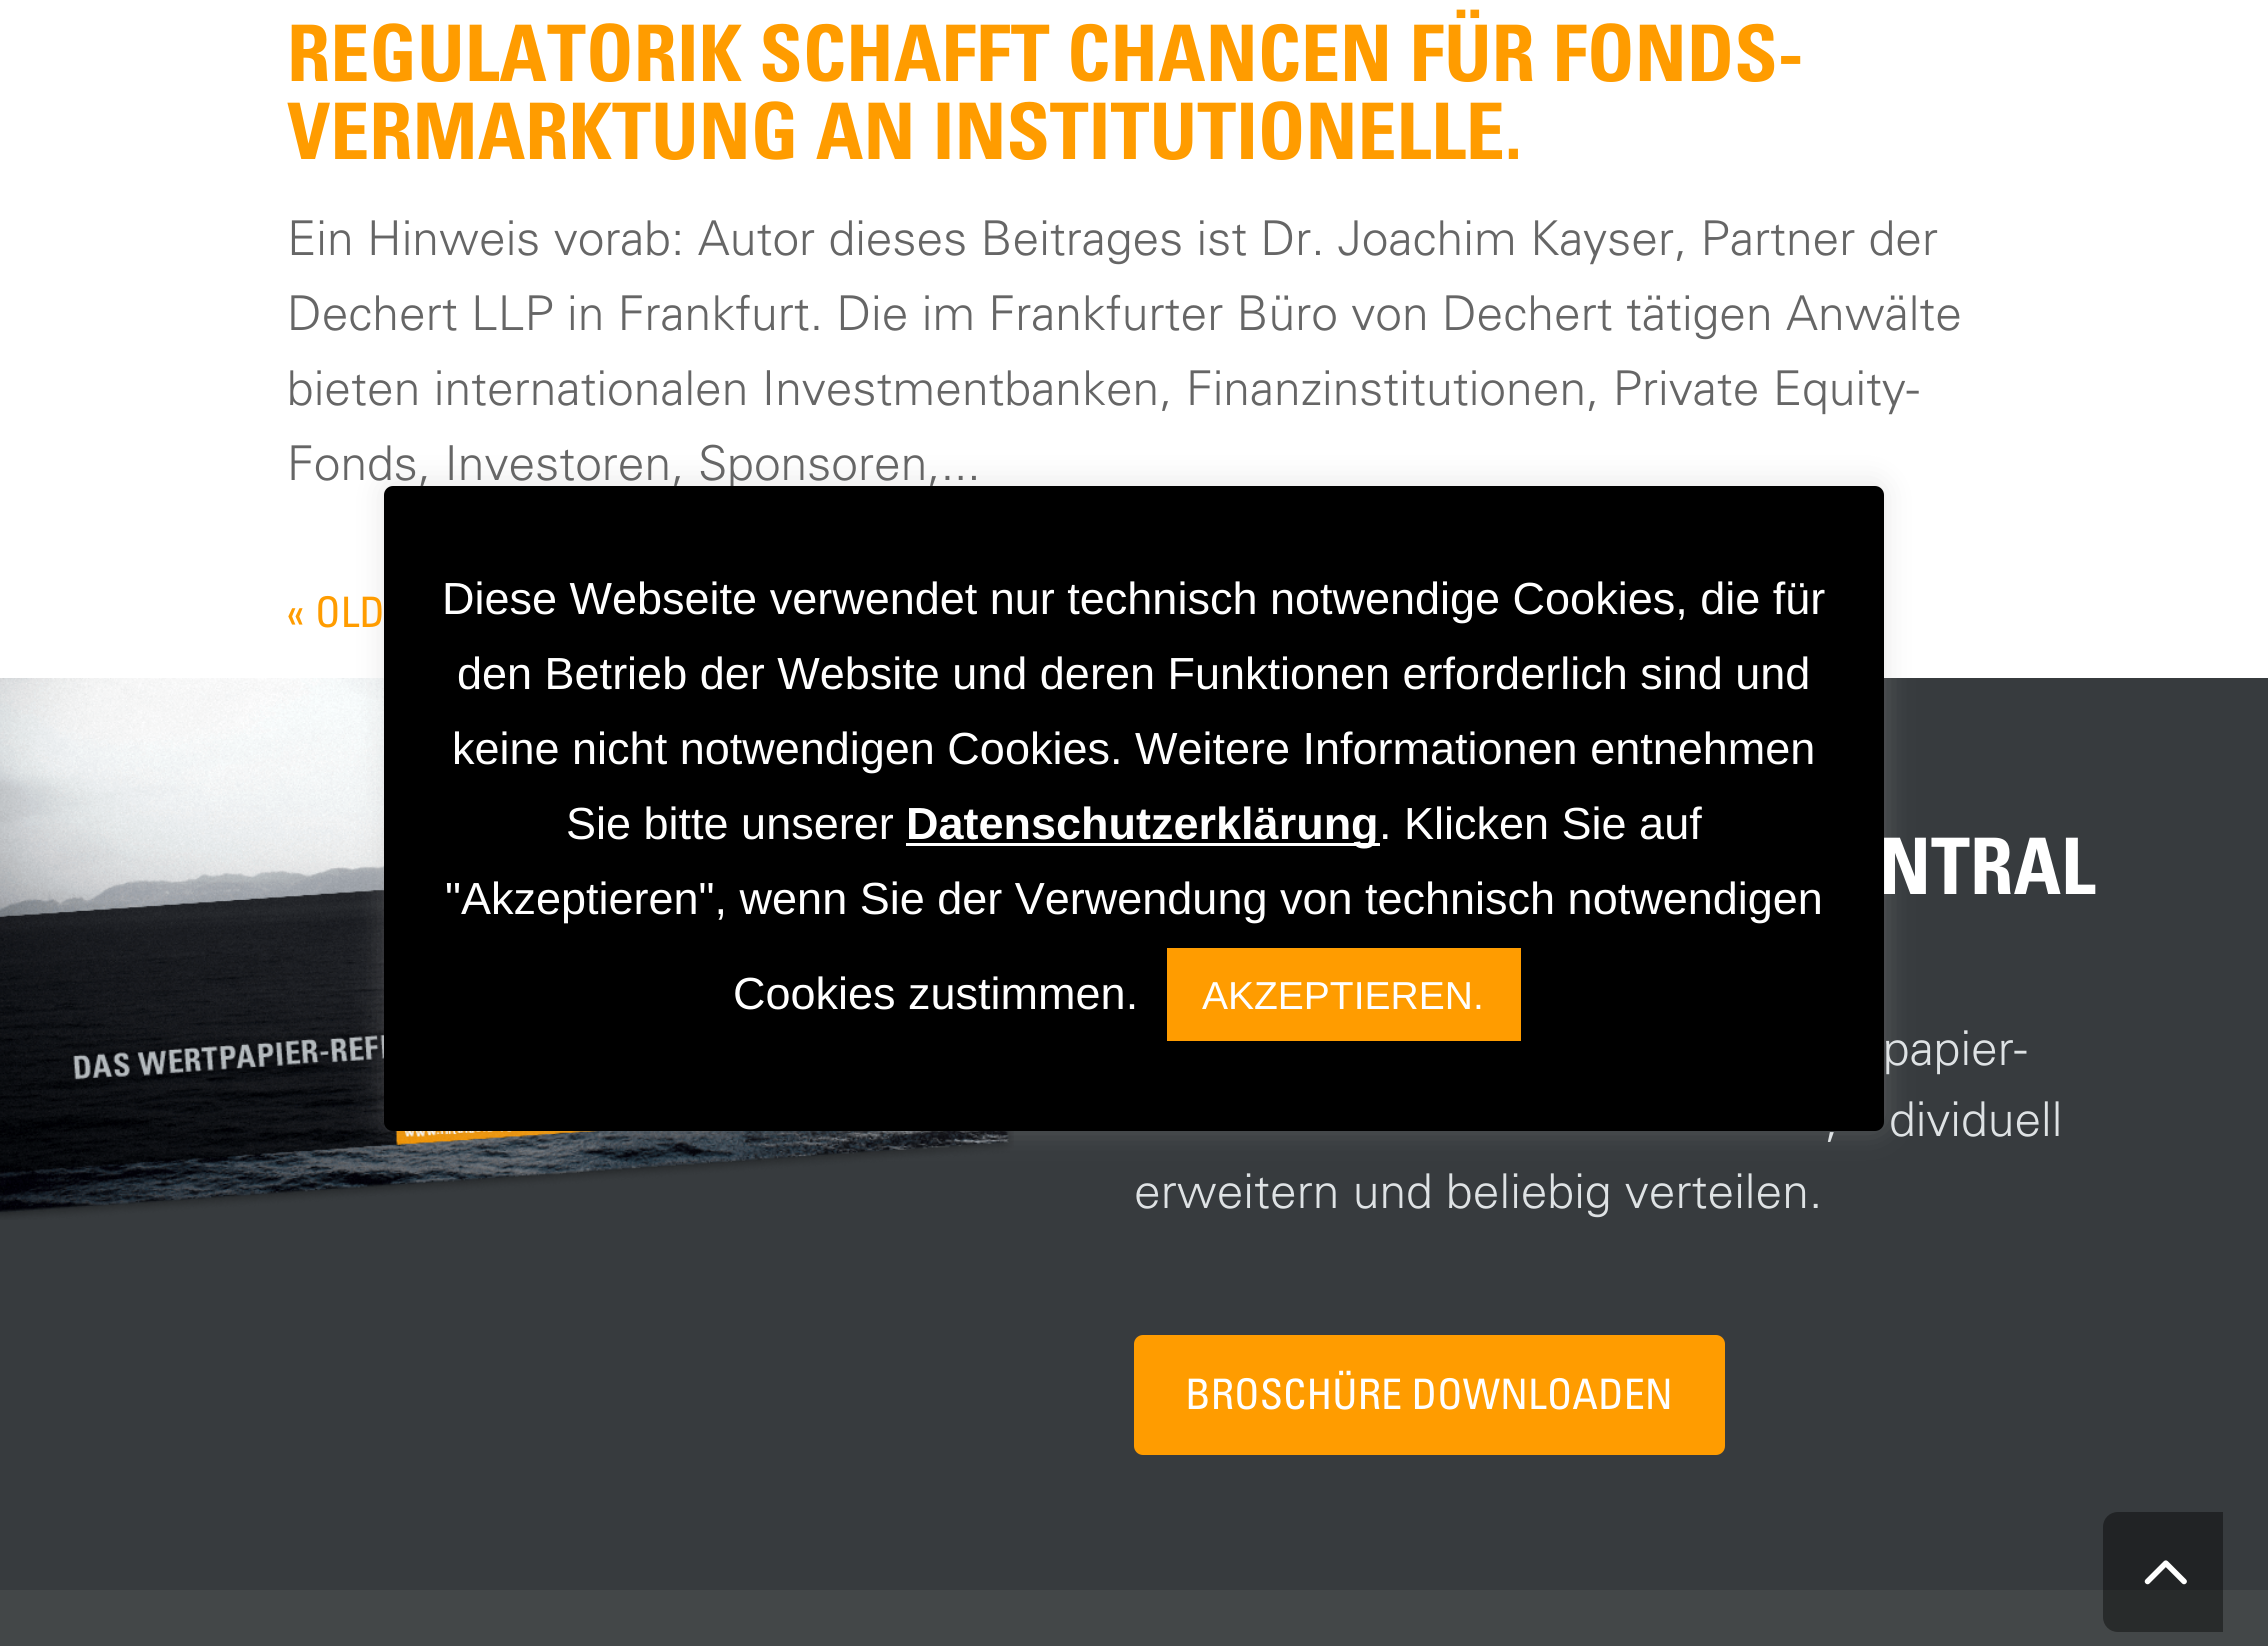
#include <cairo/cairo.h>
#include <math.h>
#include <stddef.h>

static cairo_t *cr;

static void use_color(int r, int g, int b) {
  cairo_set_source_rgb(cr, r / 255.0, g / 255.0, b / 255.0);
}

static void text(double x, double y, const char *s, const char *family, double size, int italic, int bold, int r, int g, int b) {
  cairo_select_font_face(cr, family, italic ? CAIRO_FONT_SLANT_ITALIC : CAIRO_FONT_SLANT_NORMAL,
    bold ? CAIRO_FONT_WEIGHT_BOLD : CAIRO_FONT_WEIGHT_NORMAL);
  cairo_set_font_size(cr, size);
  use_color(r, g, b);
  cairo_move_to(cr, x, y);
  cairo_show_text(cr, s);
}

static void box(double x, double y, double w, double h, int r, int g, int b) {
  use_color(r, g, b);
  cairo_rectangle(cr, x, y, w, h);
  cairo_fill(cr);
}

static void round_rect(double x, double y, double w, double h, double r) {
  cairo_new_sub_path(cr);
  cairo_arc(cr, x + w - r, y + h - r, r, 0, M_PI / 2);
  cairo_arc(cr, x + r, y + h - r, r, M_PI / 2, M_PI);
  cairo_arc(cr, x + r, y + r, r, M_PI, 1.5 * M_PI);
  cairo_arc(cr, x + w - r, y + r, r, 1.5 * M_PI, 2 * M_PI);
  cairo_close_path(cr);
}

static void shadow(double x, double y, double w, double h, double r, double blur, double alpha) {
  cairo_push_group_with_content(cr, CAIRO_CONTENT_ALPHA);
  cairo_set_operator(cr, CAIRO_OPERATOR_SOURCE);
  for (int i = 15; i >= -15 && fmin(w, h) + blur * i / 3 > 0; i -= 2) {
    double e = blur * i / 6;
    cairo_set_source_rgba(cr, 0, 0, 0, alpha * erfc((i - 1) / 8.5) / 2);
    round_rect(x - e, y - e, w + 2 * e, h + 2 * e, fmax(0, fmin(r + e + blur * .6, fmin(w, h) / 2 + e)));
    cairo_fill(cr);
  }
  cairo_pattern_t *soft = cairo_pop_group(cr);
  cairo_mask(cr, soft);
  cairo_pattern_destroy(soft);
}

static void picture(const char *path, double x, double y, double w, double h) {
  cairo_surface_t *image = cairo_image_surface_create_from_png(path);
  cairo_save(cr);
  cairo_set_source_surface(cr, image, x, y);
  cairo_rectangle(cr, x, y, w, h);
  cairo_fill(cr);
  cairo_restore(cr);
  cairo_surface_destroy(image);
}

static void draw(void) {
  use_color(255, 255, 255);
  cairo_paint(cr);
  box(0, 678, 2268, 912, 55, 59, 62);
  picture("img_01.png", 0, 678, 1014, 542);
  use_color(255, 156, 0);
  round_rect(1134, 1335, 591, 120, 9);
  cairo_fill(cr);
  box(0, 1590, 2268, 56, 67, 71, 72);
  cairo_set_source_rgba(cr, 0, 0, 0, 0.4);
  cairo_new_path(cr);
  cairo_move_to(cr, 2118, 1512);
  cairo_line_to(cr, 2223, 1512);
  cairo_line_to(cr, 2223, 1632);
  cairo_line_to(cr, 2118, 1632);
  cairo_curve_to(cr, 2109.5, 1632, 2103, 1625.5, 2103, 1617);
  cairo_line_to(cr, 2103, 1527);
  cairo_curve_to(cr, 2103, 1518.5, 2109.5, 1512, 2118, 1512);
  cairo_close_path(cr);
  cairo_fill(cr);
  picture("img_02.png", 2144, 1560, 43, 25);
  use_color(172, 171, 171);
  shadow(384, 483, 1500, 645, 9, 15, 0.3);
  text(287, 81, "REGULATORIK SCHAFFT CHANCEN FÜR FONDS-", "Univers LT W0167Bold", 78, 0, 1, 255, 156, 0);
  text(287, 159, "VERMARKTUNG AN INSTITUTIONELLE.", "Univers LT W0167Bold", 78, 0, 1, 255, 156, 0);
  text(287, 255, "Ein Hinweis vorab: Autor dieses Beitrages ist Dr. Joachim Kayser, Partner der", "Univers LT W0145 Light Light", 48, 0, 0, 102, 102, 102);
  text(287, 330, "Dechert LLP in Frankfurt. Die im Frankfurter Büro von Dechert tätigen Anwälte", "Univers LT W0145 Light Light", 48, 0, 0, 102, 102, 102);
  text(287, 405, "bieten internationalen Investmentbanken, Finanzinstitutionen, Private Equity-", "Univers LT W0145 Light Light", 48, 0, 0, 102, 102, 102);
  text(287, 480, "Fonds, Investoren, Sponsoren,...", "Univers LT W0145 Light Light", 48, 0, 0, 102, 102, 102);
  text(287, 627, "« OLD", "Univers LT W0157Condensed", 42, 0, 0, 255, 156, 0);
  text(1879, 894, "NTRAL", "Univers LT W0167Bold", 78, 0, 1, 255, 255, 255);
  text(1883, 1065, "papier-", "Univers LT W0145 Light Light", 48, 0, 0, 222, 226, 228);
  text(1825, 1136, ",", "Univers LT W0145 Light Light", 48, 0, 0, 222, 226, 228);
  text(1889, 1136, "dividuell", "Univers LT W0145 Light Light", 48, 0, 0, 222, 226, 228);
  text(1134, 1208, "erweitern und beliebig verteilen.", "Univers LT W0145 Light Light", 48, 0, 0, 222, 226, 228);
  text(1185, 1409, "BROSCHÜRE DOWNLOADEN", "Univers LT W0157Condensed", 42, 0, 0, 255, 255, 255);
  use_color(0, 0, 0);
  round_rect(384, 486, 1500, 645, 9);
  cairo_fill(cr);
  text(442, 614, "Diese Webseite verwendet nur technisch notwendige Cookies, die für", "Liberation Sans", 45, 0, 0, 255, 255, 255);
  text(457, 689, "den Betrieb der Website und deren Funktionen erforderlich sind und", "Liberation Sans", 45, 0, 0, 255, 255, 255);
  text(452, 764, "keine nicht notwendigen Cookies. Weitere Informationen entnehmen", "Liberation Sans", 45, 0, 0, 255, 255, 255);
  text(566, 839, "Sie bitte unserer", "Liberation Sans", 45, 0, 0, 255, 255, 255);
  box(906, 843, 474, 3, 255, 255, 255);
  text(906, 839, "Datenschutzerklärung", "Liberation Sans", 45, 0, 1, 255, 255, 255);
  text(1379, 839, ". Klicken Sie auf", "Liberation Sans", 45, 0, 0, 255, 255, 255);
  text(445, 914, "\"Akzeptieren\", wenn Sie der Verwendung von technisch notwendigen", "Liberation Sans", 45, 0, 0, 255, 255, 255);
  text(733, 1009, "Cookies zustimmen.", "Liberation Sans", 45, 0, 0, 255, 255, 255);
  box(1167, 948, 354, 93, 255, 156, 0);
  text(1202, 1009, "AKZEPTIEREN.", "Liberation Sans", 39, 0, 0, 255, 255, 255);
}

int main(void) {
  cairo_surface_t *surface = cairo_image_surface_create(CAIRO_FORMAT_RGB24, 2268, 1646);
  cr = cairo_create(surface);
  cairo_font_options_t *options = cairo_font_options_create();
  cairo_font_options_set_hint_metrics(options, CAIRO_HINT_METRICS_OFF);
  cairo_font_options_set_hint_style(options, CAIRO_HINT_STYLE_NONE);
  cairo_set_font_options(cr, options);
  cairo_set_miter_limit(cr, 4);
  draw();
  cairo_surface_write_to_png(surface, "out.png");
  cairo_font_options_destroy(options);
  cairo_destroy(cr);
  cairo_surface_destroy(surface);
  return 0;
}
